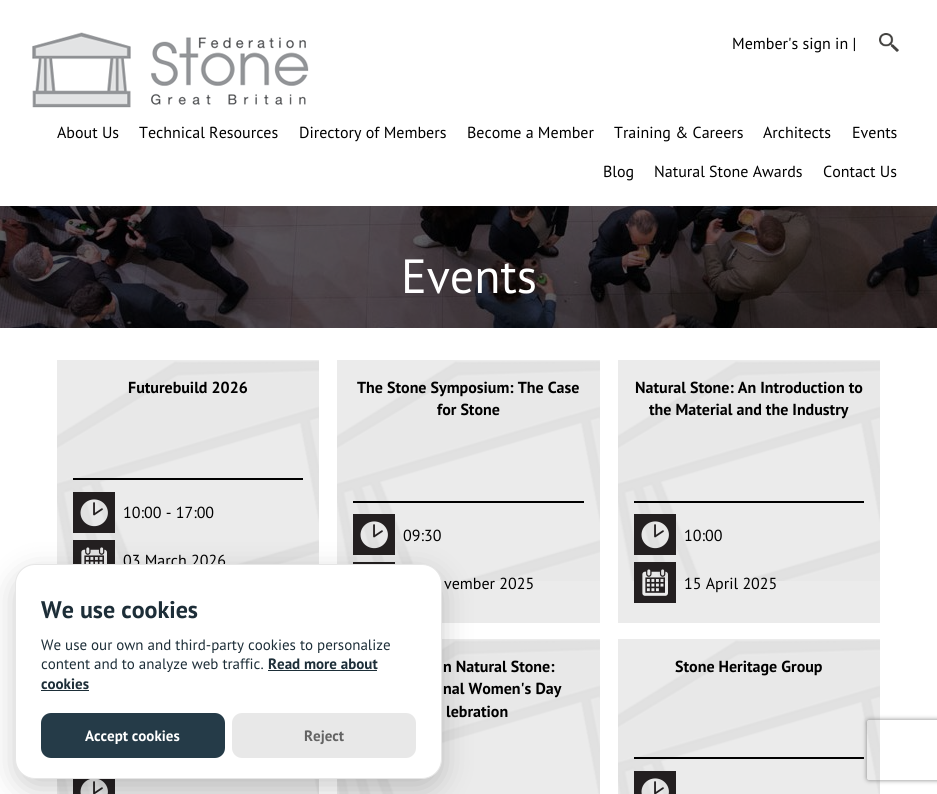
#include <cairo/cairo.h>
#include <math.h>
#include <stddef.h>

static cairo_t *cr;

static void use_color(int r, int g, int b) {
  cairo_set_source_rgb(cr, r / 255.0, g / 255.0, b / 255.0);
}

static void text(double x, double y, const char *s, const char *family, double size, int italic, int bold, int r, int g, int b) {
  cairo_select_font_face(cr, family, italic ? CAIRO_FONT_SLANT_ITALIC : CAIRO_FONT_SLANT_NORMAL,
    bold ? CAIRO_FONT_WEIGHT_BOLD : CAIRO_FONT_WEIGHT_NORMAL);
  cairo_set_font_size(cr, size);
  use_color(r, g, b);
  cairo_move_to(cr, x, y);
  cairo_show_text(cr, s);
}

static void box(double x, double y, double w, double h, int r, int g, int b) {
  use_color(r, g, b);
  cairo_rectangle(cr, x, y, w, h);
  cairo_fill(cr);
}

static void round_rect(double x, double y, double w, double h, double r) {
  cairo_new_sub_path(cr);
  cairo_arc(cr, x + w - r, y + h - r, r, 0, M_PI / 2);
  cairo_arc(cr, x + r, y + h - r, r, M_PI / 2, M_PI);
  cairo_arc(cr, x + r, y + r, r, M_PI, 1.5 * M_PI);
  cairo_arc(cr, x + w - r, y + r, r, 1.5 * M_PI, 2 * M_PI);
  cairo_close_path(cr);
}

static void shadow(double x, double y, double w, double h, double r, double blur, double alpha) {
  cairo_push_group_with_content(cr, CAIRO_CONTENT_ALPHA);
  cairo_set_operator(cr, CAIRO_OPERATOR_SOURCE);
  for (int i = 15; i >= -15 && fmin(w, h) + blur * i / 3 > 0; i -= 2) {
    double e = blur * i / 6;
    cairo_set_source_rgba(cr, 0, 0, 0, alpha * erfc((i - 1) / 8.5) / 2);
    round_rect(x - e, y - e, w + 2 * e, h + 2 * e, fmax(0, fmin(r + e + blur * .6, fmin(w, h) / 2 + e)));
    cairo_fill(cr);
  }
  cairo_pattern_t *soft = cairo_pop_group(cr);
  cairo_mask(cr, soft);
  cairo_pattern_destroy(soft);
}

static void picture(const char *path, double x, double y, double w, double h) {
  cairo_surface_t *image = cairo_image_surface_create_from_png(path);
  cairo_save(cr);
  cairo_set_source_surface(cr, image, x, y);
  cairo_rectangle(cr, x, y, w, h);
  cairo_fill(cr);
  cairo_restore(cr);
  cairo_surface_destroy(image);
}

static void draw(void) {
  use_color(255, 255, 255);
  cairo_paint(cr);
  picture("img_01.png", 32, 32, 277, 76);
  picture("img_02.png", 879, 33, 20, 19);
  picture("img_04.png", 0, 206, 937, 122);
  picture("img_03.png", 0, 206, 937, 122);
  box(57, 360, 262, 1, 235, 235, 235);
  picture("img_05.png", 57, 361, 262, 203);
  box(73, 478, 230, 2, 0, 0, 0);
  picture("img_06.png", 73, 492, 42, 41);
  picture("img_07.png", 73, 540, 42, 24);
  box(337, 360, 263, 263, 235, 235, 235);
  picture("img_08.png", 337, 361, 263, 220);
  box(353, 501, 231, 2, 0, 0, 0);
  picture("img_09.png", 353, 514, 42, 41);
  picture("img_10.png", 353, 562, 42, 2);
  box(618, 360, 262, 263, 235, 235, 235);
  picture("img_11.png", 618, 361, 262, 220);
  box(634, 501, 230, 2, 0, 0, 0);
  picture("img_12.png", 634, 514, 42, 41);
  picture("img_13.png", 634, 562, 42, 41);
  box(442, 639, 158, 1, 235, 235, 235);
  picture("img_14.png", 337, 640, 263, 154);
  box(618, 639, 262, 1, 235, 235, 235);
  picture("img_15.png", 618, 640, 262, 154);
  box(634, 757, 230, 2, 0, 0, 0);
  picture("img_16.png", 634, 771, 42, 23);
  picture("img_17.png", 57, 779, 262, 15);
  picture("img_18.png", 73, 779, 42, 15);
  use_color(2, 2, 3);
  shadow(15, 574, 427, 215, 20, 15, 0.2);
  cairo_save(cr);
  cairo_set_fill_rule(cr, CAIRO_FILL_RULE_EVEN_ODD);
  cairo_new_path(cr);
  cairo_move_to(cr, 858, 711);
  cairo_line_to(cr, 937, 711);
  cairo_line_to(cr, 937, 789);
  cairo_line_to(cr, 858, 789);
  cairo_close_path(cr);
  cairo_move_to(cr, 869, 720);
  cairo_line_to(cr, 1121, 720);
  cairo_curve_to(cr, 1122, 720, 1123, 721, 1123, 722);
  cairo_line_to(cr, 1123, 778);
  cairo_curve_to(cr, 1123, 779, 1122, 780, 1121, 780);
  cairo_line_to(cr, 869, 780);
  cairo_curve_to(cr, 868, 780, 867, 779, 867, 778);
  cairo_line_to(cr, 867, 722);
  cairo_curve_to(cr, 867, 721, 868, 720, 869, 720);
  cairo_close_path(cr);
  cairo_clip(cr);
  use_color(128, 128, 128);
  shadow(867, 720, 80, 60, 2, 2.5, 1);
  cairo_restore(cr);
  text(732, 49, "Member's sign in |", "PT Sans", 16, 0, 0, 0, 0, 0);
  text(57, 138, "About Us", "PT Sans", 16, 0, 0, 0, 0, 0);
  text(139, 138, "Technical Resources", "PT Sans", 16, 0, 0, 0, 0, 0);
  text(299, 138, "Directory of Members", "PT Sans", 16, 0, 0, 0, 0, 0);
  text(467, 138, "Become a Member", "PT Sans", 16, 0, 0, 0, 0, 0);
  text(614, 138, "Training & Careers", "PT Sans", 16, 0, 0, 0, 0, 0);
  text(763, 138, "Architects", "PT Sans", 16, 0, 0, 0, 0, 0);
  text(852, 138, "Events", "PT Sans", 16, 0, 0, 0, 0, 0);
  text(603, 177, "Blog", "PT Sans", 16, 0, 0, 0, 0, 0);
  text(654, 177, "Natural Stone Awards", "PT Sans", 16, 0, 0, 0, 0, 0);
  text(823, 177, "Contact Us", "PT Sans", 16, 0, 0, 0, 0, 0);
  text(401, 293, "Events", "PT Sans", 48, 0, 0, 255, 255, 255);
  text(128, 393, "Futurebuild 2026", "PT Sans", 16, 0, 1, 0, 0, 0);
  text(123, 518, "10:00 - 17:00", "PT Sans", 16, 0, 0, 0, 0, 0);
  text(123, 566, "03 March 2026", "PT Sans", 16, 0, 0, 0, 0, 0);
  text(357, 393, "The Stone Symposium: The Case", "PT Sans", 16, 0, 1, 0, 0, 0);
  text(437, 415, "for Stone", "PT Sans", 16, 0, 1, 0, 0, 0);
  text(403, 541, "09:30", "PT Sans", 16, 0, 0, 0, 0, 0);
  text(444, 589, "vember 2025", "PT Sans", 16, 0, 0, 0, 0, 0);
  text(635, 393, "Natural Stone: An Introduction to", "PT Sans", 16, 0, 1, 0, 0, 0);
  text(649, 415, "the Material and the Industry", "PT Sans", 16, 0, 1, 0, 0, 0);
  text(684, 541, "10:00", "PT Sans", 16, 0, 0, 0, 0, 0);
  text(684, 589, "15 April 2025", "PT Sans", 16, 0, 0, 0, 0, 0);
  text(443, 672, "n Natural Stone:", "PT Sans", 16, 0, 1, 0, 0, 0);
  text(443, 694, "nal Women's Day", "PT Sans", 16, 0, 1, 0, 0, 0);
  text(446, 717, "lebration", "PT Sans", 16, 0, 1, 0, 0, 0);
  text(675, 672, "Stone Heritage Group", "PT Sans", 16, 0, 1, 0, 0, 0);
  use_color(255, 255, 255);
  round_rect(15.5, 564.5, 426, 214, 19.5);
  cairo_fill_preserve(cr);
  use_color(230, 230, 230);
  cairo_set_line_width(cr, 1);
  cairo_stroke(cr);
  text(41, 618, "We use cookies", "PT Sans", 24, 0, 1, 29, 46, 56);
  text(41, 650, "We use our own and third-party cookies to personalize", "PT Sans", 15, 0, 0, 29, 46, 56);
  text(41, 669, "content and to analyze web traffic.", "PT Sans", 15, 0, 0, 29, 46, 56);
  text(268, 669, "Read more about", "PT Sans", 15, 0, 1, 29, 46, 56);
  box(268, 670, 109, 1, 29, 46, 56);
  text(41, 689, "cookies", "PT Sans", 15, 0, 1, 29, 46, 56);
  box(41, 690, 48, 1, 29, 46, 56);
  use_color(37, 59, 72);
  round_rect(41, 713, 184, 45, 10);
  cairo_fill(cr);
  text(85, 741, "Accept cookies", "PT Sans", 15, 0, 1, 255, 255, 255);
  use_color(232, 232, 232);
  round_rect(232, 713, 184, 45, 10);
  cairo_fill(cr);
  text(304, 741, "Reject", "PT Sans", 15, 0, 1, 99, 99, 99);
}

int main(void) {
  cairo_surface_t *surface = cairo_image_surface_create(CAIRO_FORMAT_RGB24, 937, 794);
  cr = cairo_create(surface);
  cairo_font_options_t *options = cairo_font_options_create();
  cairo_font_options_set_hint_metrics(options, CAIRO_HINT_METRICS_OFF);
  cairo_font_options_set_hint_style(options, CAIRO_HINT_STYLE_NONE);
  cairo_set_font_options(cr, options);
  cairo_set_miter_limit(cr, 4);
  draw();
  cairo_surface_write_to_png(surface, "out.png");
  cairo_font_options_destroy(options);
  cairo_destroy(cr);
  cairo_surface_destroy(surface);
  return 0;
}
